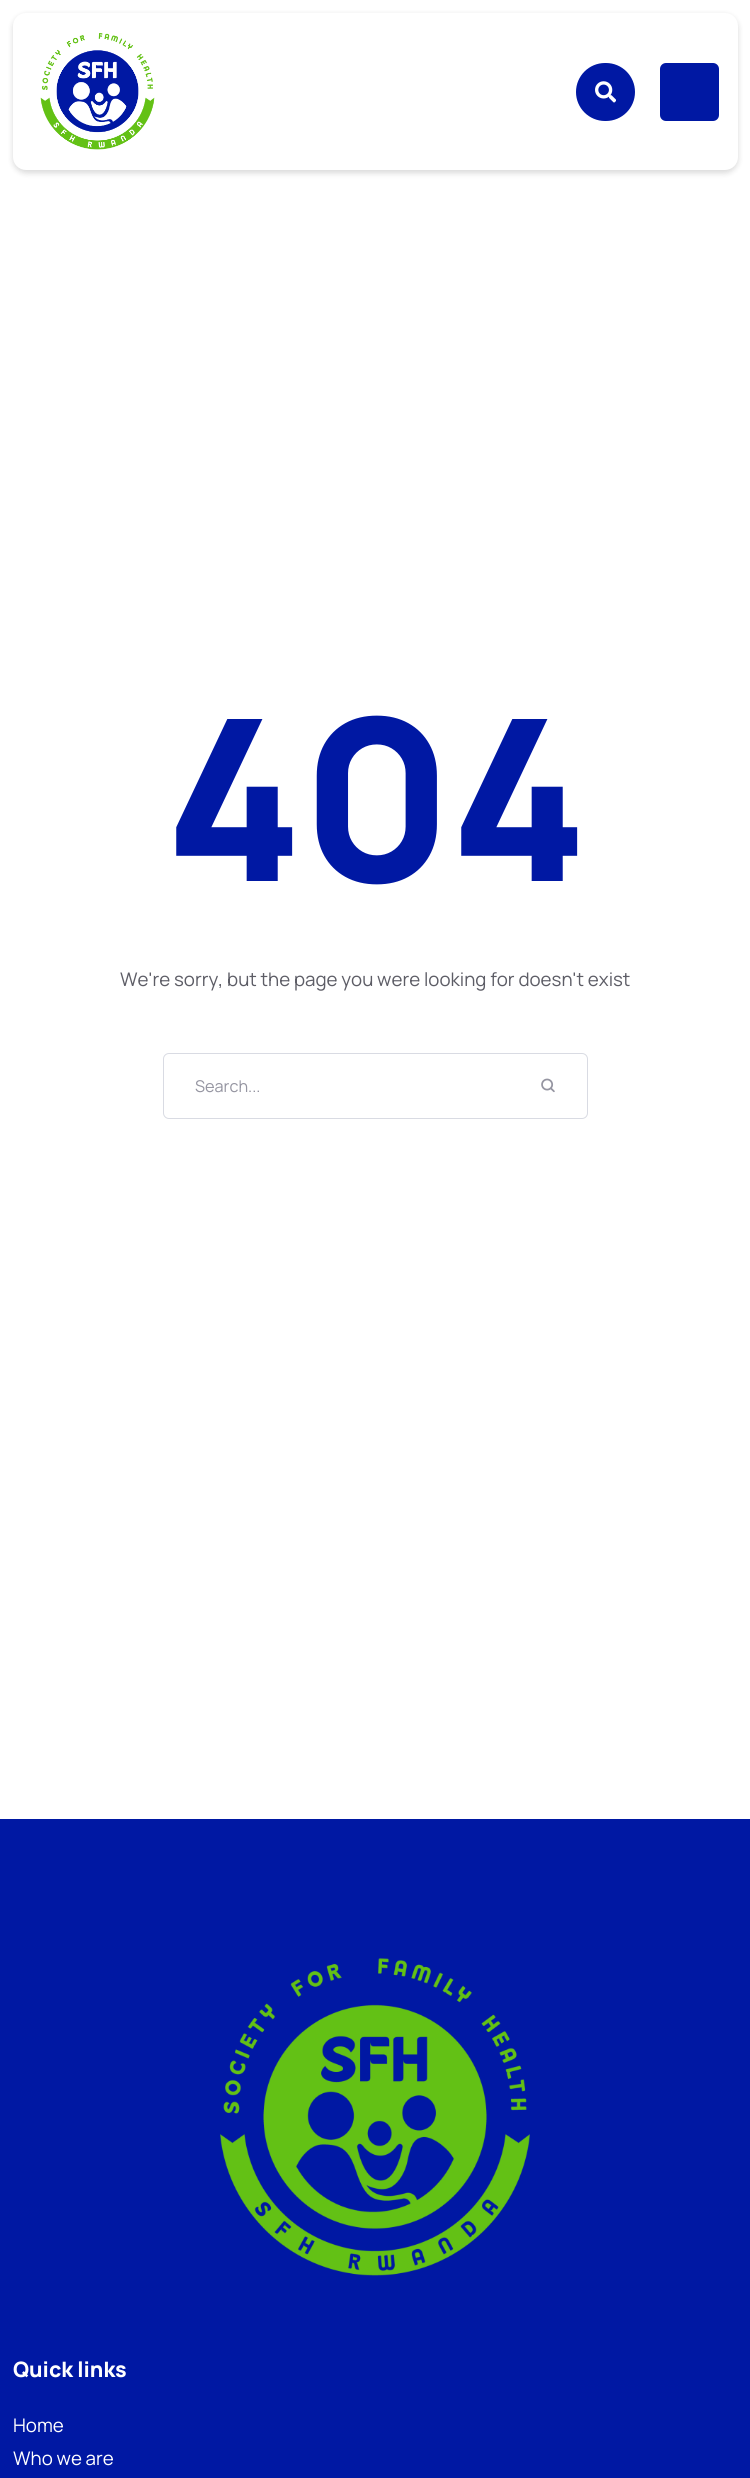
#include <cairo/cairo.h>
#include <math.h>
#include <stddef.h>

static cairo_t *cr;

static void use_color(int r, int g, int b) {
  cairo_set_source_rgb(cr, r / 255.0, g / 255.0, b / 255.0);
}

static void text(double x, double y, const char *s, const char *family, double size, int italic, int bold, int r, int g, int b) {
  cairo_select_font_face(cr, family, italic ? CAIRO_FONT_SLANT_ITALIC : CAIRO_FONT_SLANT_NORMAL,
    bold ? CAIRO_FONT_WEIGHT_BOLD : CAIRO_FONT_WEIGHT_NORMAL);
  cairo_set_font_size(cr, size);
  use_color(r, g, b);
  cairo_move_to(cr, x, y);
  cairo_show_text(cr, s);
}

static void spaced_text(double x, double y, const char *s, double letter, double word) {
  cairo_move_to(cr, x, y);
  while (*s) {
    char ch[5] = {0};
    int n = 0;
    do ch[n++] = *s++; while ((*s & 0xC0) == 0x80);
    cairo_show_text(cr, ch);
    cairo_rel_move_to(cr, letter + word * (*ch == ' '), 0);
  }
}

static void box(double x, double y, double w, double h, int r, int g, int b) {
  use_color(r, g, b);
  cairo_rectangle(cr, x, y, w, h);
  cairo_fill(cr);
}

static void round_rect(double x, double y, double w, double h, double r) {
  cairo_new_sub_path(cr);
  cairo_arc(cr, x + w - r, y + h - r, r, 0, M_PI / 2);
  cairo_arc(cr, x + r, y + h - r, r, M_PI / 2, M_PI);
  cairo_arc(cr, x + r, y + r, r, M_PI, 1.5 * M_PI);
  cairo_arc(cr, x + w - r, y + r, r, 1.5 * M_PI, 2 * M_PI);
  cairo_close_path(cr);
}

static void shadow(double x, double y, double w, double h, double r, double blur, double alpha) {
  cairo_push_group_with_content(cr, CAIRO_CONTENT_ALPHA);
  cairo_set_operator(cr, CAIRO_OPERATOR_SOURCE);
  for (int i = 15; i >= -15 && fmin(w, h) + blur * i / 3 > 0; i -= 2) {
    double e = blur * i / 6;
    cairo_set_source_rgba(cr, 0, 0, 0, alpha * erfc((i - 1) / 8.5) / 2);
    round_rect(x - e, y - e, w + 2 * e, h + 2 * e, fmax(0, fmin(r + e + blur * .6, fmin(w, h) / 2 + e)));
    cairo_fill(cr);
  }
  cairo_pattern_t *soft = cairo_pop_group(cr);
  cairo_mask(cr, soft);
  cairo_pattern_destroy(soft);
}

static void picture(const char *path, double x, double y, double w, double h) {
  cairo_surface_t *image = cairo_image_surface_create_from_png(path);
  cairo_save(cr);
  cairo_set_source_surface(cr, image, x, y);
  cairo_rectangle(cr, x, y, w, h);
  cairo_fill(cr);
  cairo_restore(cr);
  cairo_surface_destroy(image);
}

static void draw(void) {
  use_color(255, 255, 255);
  cairo_paint(cr);
  use_color(0, 0, 0);
  shadow(13, 15, 725, 158, 13, 3, 0.15);
  use_color(255, 255, 255);
  round_rect(13, 13, 725, 157, 13);
  cairo_fill(cr);
  picture("img_01.png", 40, 33, 115, 117);
  use_color(0, 24, 163);
  round_rect(576, 63, 59, 58, 29);
  cairo_fill(cr);
  picture("img_02.png", 595, 81, 21, 22);
  round_rect(660, 63, 59, 58, 6);
  cairo_fill(cr);
  round_rect(163.5, 1053.5, 424, 65, 5.5);
  use_color(217, 219, 227);
  cairo_set_line_width(cr, 1);
  cairo_stroke(cr);
  picture("img_03.png", 541, 1078, 14, 15);
  box(0, 1819, 750, 659, 0, 24, 163);
  picture("img_04.png", 220, 1958, 310, 318);
  cairo_select_font_face(cr, "Manrope ExtraBold", CAIRO_FONT_SLANT_NORMAL, CAIRO_FONT_WEIGHT_NORMAL);
  cairo_set_font_size(cr, 225);
  spaced_text(165, 881, "404", -2.5, 0);
  text(120, 986, "We're sorry, but the page you were looking for doesn't exist", "Manrope", 18.75, 0, 0, 93, 93, 102);
  text(195, 1092, "Search...", "Manrope", 16.25, 0, 0, 149, 149, 161);
  text(13, 2377, "Quick links", "Manrope ExtraBold", 21.25, 0, 0, 255, 255, 255);
  text(13, 2432, "Home", "Manrope", 18.75, 0, 0, 255, 255, 255);
  text(13, 2465, "Who we are", "Manrope", 18.75, 0, 0, 255, 255, 255);
}

int main(void) {
  cairo_surface_t *surface = cairo_image_surface_create(CAIRO_FORMAT_RGB24, 750, 2478);
  cr = cairo_create(surface);
  cairo_font_options_t *options = cairo_font_options_create();
  cairo_font_options_set_hint_metrics(options, CAIRO_HINT_METRICS_OFF);
  cairo_font_options_set_hint_style(options, CAIRO_HINT_STYLE_NONE);
  cairo_set_font_options(cr, options);
  cairo_set_miter_limit(cr, 4);
  draw();
  cairo_surface_write_to_png(surface, "out.png");
  cairo_font_options_destroy(options);
  cairo_destroy(cr);
  cairo_surface_destroy(surface);
  return 0;
}
